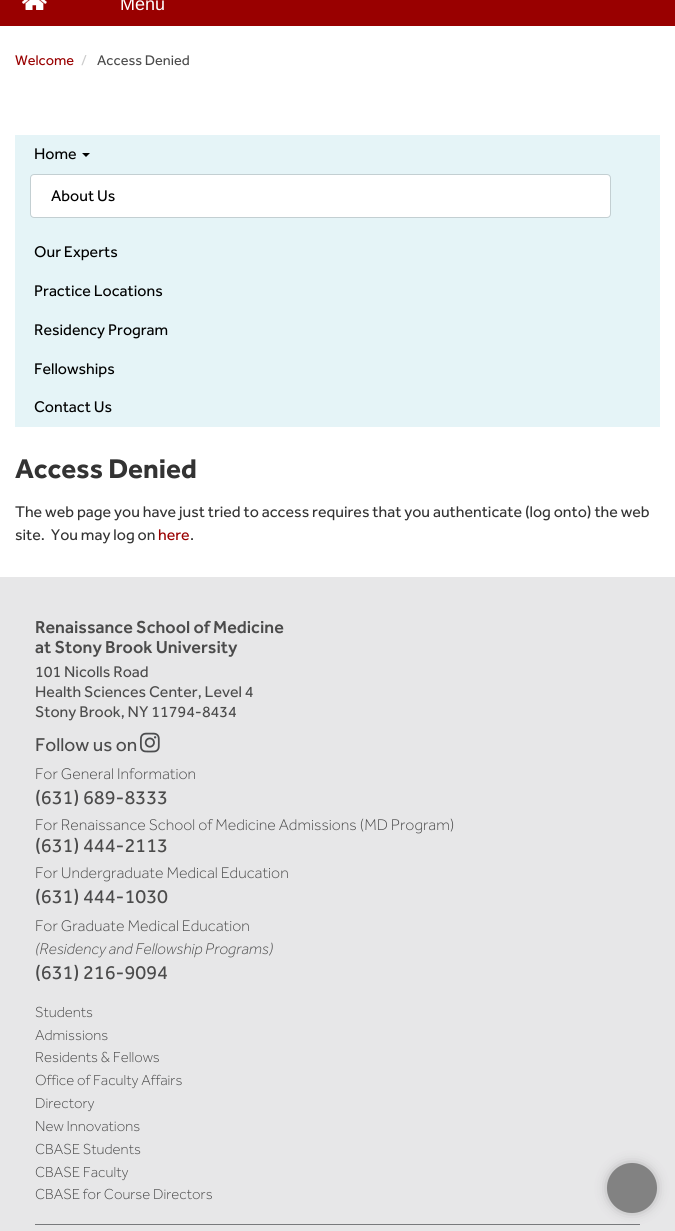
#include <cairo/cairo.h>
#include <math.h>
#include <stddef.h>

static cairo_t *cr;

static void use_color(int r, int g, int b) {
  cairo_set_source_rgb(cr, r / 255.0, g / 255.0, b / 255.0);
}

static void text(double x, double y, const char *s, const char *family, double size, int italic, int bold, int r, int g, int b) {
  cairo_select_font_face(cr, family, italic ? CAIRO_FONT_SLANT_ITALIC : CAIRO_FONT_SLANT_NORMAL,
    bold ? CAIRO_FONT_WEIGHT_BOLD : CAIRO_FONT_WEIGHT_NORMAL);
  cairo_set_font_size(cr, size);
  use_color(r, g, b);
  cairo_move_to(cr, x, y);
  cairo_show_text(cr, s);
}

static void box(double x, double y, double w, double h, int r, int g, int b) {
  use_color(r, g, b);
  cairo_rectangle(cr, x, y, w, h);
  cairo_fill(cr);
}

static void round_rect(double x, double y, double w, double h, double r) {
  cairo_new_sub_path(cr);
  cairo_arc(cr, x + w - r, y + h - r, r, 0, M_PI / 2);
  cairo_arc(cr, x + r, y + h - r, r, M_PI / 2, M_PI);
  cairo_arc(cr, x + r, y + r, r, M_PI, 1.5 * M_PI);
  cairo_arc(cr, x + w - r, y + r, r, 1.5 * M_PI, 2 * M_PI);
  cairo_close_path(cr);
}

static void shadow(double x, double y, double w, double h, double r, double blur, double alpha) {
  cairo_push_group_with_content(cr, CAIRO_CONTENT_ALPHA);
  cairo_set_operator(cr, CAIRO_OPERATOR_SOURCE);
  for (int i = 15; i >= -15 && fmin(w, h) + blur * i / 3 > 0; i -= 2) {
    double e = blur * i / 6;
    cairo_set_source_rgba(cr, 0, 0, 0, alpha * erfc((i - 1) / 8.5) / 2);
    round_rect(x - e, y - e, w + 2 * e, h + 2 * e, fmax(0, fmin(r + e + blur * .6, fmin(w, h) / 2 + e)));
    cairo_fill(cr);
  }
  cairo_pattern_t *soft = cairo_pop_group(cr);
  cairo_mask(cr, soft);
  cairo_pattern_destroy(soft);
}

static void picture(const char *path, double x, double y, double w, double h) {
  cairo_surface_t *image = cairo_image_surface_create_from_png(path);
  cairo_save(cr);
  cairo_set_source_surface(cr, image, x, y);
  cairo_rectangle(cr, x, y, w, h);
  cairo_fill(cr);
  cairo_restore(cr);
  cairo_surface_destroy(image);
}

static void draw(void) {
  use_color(255, 255, 255);
  cairo_paint(cr);
  box(0, 0, 675, 26, 153, 0, 0);
  picture("img_01.png", 22, 0, 25, 10);
  box(15, 135, 645, 292, 229, 244, 247);
  use_color(0, 0, 0);
  cairo_new_path(cr);
  cairo_move_to(cr, 82, 153);
  cairo_line_to(cr, 90, 153);
  cairo_line_to(cr, 86, 157);
  cairo_close_path(cr);
  cairo_fill(cr);
  use_color(255, 255, 255);
  round_rect(30.5, 174.5, 580, 43, 3.5);
  cairo_fill_preserve(cr);
  use_color(195, 207, 210);
  cairo_set_line_width(cr, 1);
  cairo_stroke(cr);
  box(0, 577, 675, 654, 231, 231, 232);
  picture("img_02.png", 140, 732, 20, 21);
  box(35, 1224, 605, 1, 120, 122, 124);
  use_color(66, 63, 66);
  shadow(613, 1169, 38, 38, 19, 7.5, 0.81);
  use_color(130, 130, 130);
  cairo_arc(cr, 632, 1188, 25, 0, 2 * M_PI);
  cairo_fill(cr);
  text(120, 10, "Menu", "Liberation Sans", 18, 0, 0, 255, 255, 255);
  text(15, 65, "Welcome", "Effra", 14.5, 0, 0, 153, 0, 0);
  text(81, 65, "/", "Effra", 14.5, 0, 0, 204, 204, 204);
  text(97, 65, "Access Denied", "Effra", 14.5, 0, 0, 75, 75, 75);
  text(34, 159, "Home", "Effra", 16, 0, 0, 0, 0, 0);
  text(51, 201, "About Us", "Effra", 16, 0, 0, 0, 0, 0);
  text(34, 257, "Our Experts", "Effra", 16, 0, 0, 0, 0, 0);
  text(34, 296, "Practice Locations", "Effra", 16, 0, 0, 0, 0, 0);
  text(34, 335, "Residency Program", "Effra", 16, 0, 0, 0, 0, 0);
  text(34, 374, "Fellowships", "Effra", 16, 0, 0, 0, 0, 0);
  text(34, 412, "Contact Us", "Effra", 16, 0, 0, 0, 0, 0);
  text(15, 478, "Access Denied", "Effra", 28, 0, 1, 51, 51, 51);
  text(15, 517, "The web page you have just tried to access requires that you authenticate (log onto) the web", "Effra", 16, 0, 0, 51, 51, 51);
  text(15, 540, "site.  You may log on", "Effra", 16, 0, 0, 51, 51, 51);
  text(158, 540, "here", "Effra", 16, 0, 0, 153, 0, 0);
  text(190, 540, ".", "Effra", 16, 0, 0, 51, 51, 51);
  text(35, 633, "Renaissance School of Medicine", "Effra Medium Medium", 17.9, 0, 0, 75, 75, 75);
  text(35, 653, "at Stony Brook University", "Effra Medium Medium", 17.9, 0, 0, 75, 75, 75);
  text(35, 677, "101 Nicolls Road", "Effra", 16, 0, 0, 75, 75, 75);
  text(35, 697, "Health Sciences Center, Level 4", "Effra", 16, 0, 0, 75, 75, 75);
  text(35, 717, "Stony Brook, NY 11794-8434", "Effra", 16, 0, 0, 75, 75, 75);
  text(35, 751, "Follow us on", "Effra", 19.25, 0, 0, 75, 75, 75);
  text(35, 779, "For General Information", "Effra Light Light", 16, 0, 0, 75, 75, 75);
  text(35, 804, "(631) 689-8333", "Effra", 20, 0, 0, 75, 75, 75);
  text(35, 830, "For Renaissance School of Medicine Admissions (MD Program)", "Effra Light Light", 16, 0, 0, 75, 75, 75);
  text(35, 852, "(631) 444-2113", "Effra", 20, 0, 0, 75, 75, 75);
  text(35, 878, "For Undergraduate Medical Education", "Effra Light Light", 16, 0, 0, 75, 75, 75);
  text(35, 903, "(631) 444-1030", "Effra", 20, 0, 0, 75, 75, 75);
  text(35, 931, "For Graduate Medical Education", "Effra Light Light", 16, 0, 0, 75, 75, 75);
  text(35, 954, "(Residency and Fellowship Programs)", "Effra Light Light", 16, 1, 0, 75, 75, 75);
  text(35, 979, "(631) 216-9094", "Effra", 20, 0, 0, 75, 75, 75);
  text(35, 1017, "Students", "Effra Light Light", 15, 0, 0, 75, 75, 75);
  text(35, 1040, "Admissions", "Effra Light Light", 15, 0, 0, 75, 75, 75);
  text(35, 1062, "Residents & Fellows", "Effra Light Light", 15, 0, 0, 75, 75, 75);
  text(35, 1085, "Office of Faculty Affairs", "Effra Light Light", 15, 0, 0, 75, 75, 75);
  text(35, 1108, "Directory", "Effra Light Light", 15, 0, 0, 75, 75, 75);
  text(35, 1131, "New Innovations", "Effra Light Light", 15, 0, 0, 75, 75, 75);
  text(35, 1154, "CBASE Students", "Effra Light Light", 15, 0, 0, 75, 75, 75);
  text(35, 1177, "CBASE Faculty", "Effra Light Light", 15, 0, 0, 75, 75, 75);
  text(35, 1199, "CBASE for Course Directors", "Effra Light Light", 15, 0, 0, 75, 75, 75);
}

int main(void) {
  cairo_surface_t *surface = cairo_image_surface_create(CAIRO_FORMAT_RGB24, 675, 1231);
  cr = cairo_create(surface);
  cairo_font_options_t *options = cairo_font_options_create();
  cairo_font_options_set_hint_metrics(options, CAIRO_HINT_METRICS_OFF);
  cairo_font_options_set_hint_style(options, CAIRO_HINT_STYLE_NONE);
  cairo_set_font_options(cr, options);
  cairo_set_miter_limit(cr, 4);
  draw();
  cairo_surface_write_to_png(surface, "out.png");
  cairo_font_options_destroy(options);
  cairo_destroy(cr);
  cairo_surface_destroy(surface);
  return 0;
}
